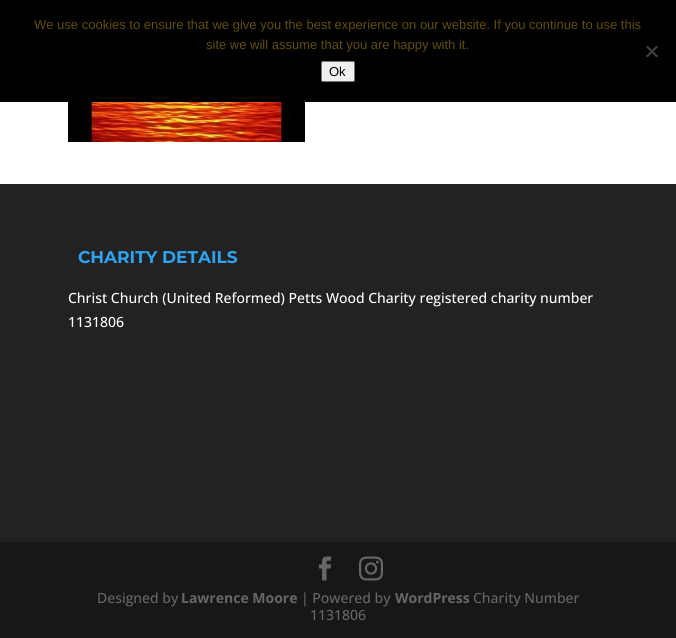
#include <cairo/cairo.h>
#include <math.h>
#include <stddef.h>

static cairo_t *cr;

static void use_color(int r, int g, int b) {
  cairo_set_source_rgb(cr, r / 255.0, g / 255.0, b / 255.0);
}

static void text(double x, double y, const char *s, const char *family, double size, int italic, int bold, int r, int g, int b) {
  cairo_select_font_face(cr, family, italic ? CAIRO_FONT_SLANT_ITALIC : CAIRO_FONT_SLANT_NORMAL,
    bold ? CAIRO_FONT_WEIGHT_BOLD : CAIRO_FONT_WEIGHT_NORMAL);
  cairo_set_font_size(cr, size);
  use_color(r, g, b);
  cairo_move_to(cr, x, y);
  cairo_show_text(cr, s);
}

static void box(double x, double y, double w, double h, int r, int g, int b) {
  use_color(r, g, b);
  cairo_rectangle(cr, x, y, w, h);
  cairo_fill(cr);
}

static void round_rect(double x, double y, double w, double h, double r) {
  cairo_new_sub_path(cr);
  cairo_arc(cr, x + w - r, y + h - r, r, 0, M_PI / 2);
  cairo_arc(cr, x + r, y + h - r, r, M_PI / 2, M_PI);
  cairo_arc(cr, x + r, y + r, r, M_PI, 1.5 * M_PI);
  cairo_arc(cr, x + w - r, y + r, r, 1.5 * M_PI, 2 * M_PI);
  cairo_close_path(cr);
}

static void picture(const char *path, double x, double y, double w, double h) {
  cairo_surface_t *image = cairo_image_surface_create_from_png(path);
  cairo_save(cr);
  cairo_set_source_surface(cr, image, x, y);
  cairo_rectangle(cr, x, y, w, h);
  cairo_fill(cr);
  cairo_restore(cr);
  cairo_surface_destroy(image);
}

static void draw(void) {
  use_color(255, 255, 255);
  cairo_paint(cr);
  box(0, 0, 676, 102, 0, 0, 0);
  use_color(64, 64, 64);
  cairo_new_path(cr);
  cairo_move_to(cr, 656.5, 45.5);
  cairo_line_to(cr, 658, 47);
  cairo_line_to(cr, 647.5, 57.5);
  cairo_line_to(cr, 646, 56);
  cairo_close_path(cr);
  cairo_fill(cr);
  cairo_new_path(cr);
  cairo_move_to(cr, 646, 47);
  cairo_line_to(cr, 647.5, 45.5);
  cairo_line_to(cr, 658, 56);
  cairo_line_to(cr, 656.5, 57.5);
  cairo_close_path(cr);
  cairo_fill(cr);
  use_color(239, 239, 239);
  round_rect(321.5, 61.5, 33, 20, 1.5);
  cairo_fill_preserve(cr);
  use_color(118, 118, 118);
  cairo_set_line_width(cr, 1);
  cairo_stroke(cr);
  picture("img_01.png", 68, 102, 237, 40);
  box(0, 184, 676, 358, 34, 34, 34);
  box(0, 542, 676, 96, 23, 23, 23);
  picture("img_02.png", 319, 556, 12, 25);
  picture("img_03.png", 359, 556, 24, 25);
  text(34, 29, "We use cookies to ensure that we give you the best experience on our website. If you continue to use this", "Liberation Sans", 13, 0, 0, 96, 78, 5);
  text(206, 49, "site we will assume that you are happy with it.", "Liberation Sans", 13, 0, 0, 96, 78, 5);
  text(329, 76, "Ok", "Liberation Sans", 13, 0, 0, 0, 0, 0);
  text(78, 263, "CHARITY DETAILS", "Montserrat", 17, 0, 1, 46, 163, 242);
  text(68, 303, "Christ Church (United Reformed) Petts Wood Charity registered charity number", "Open Sans Medium", 14, 0, 0, 255, 255, 255);
  text(68, 327, "1131806", "Open Sans Medium", 14, 0, 0, 255, 255, 255);
  text(97, 603, "Designed by", "Open Sans Medium", 14, 0, 0, 102, 102, 102);
  text(181, 603, "Lawrence Moore", "Open Sans", 14, 0, 1, 102, 102, 102);
  text(301, 603, "| Powered by", "Open Sans Medium", 14, 0, 0, 102, 102, 102);
  text(395, 603, "WordPress", "Open Sans", 14, 0, 1, 102, 102, 102);
  text(473, 603, "Charity Number", "Open Sans Medium", 14, 0, 0, 102, 102, 102);
  text(310, 620, "1131806", "Open Sans Medium", 14, 0, 0, 102, 102, 102);
}

int main(void) {
  cairo_surface_t *surface = cairo_image_surface_create(CAIRO_FORMAT_RGB24, 676, 638);
  cr = cairo_create(surface);
  cairo_font_options_t *options = cairo_font_options_create();
  cairo_font_options_set_hint_metrics(options, CAIRO_HINT_METRICS_OFF);
  cairo_font_options_set_hint_style(options, CAIRO_HINT_STYLE_NONE);
  cairo_set_font_options(cr, options);
  cairo_set_miter_limit(cr, 4);
  draw();
  cairo_surface_write_to_png(surface, "out.png");
  cairo_font_options_destroy(options);
  cairo_destroy(cr);
  cairo_surface_destroy(surface);
  return 0;
}
